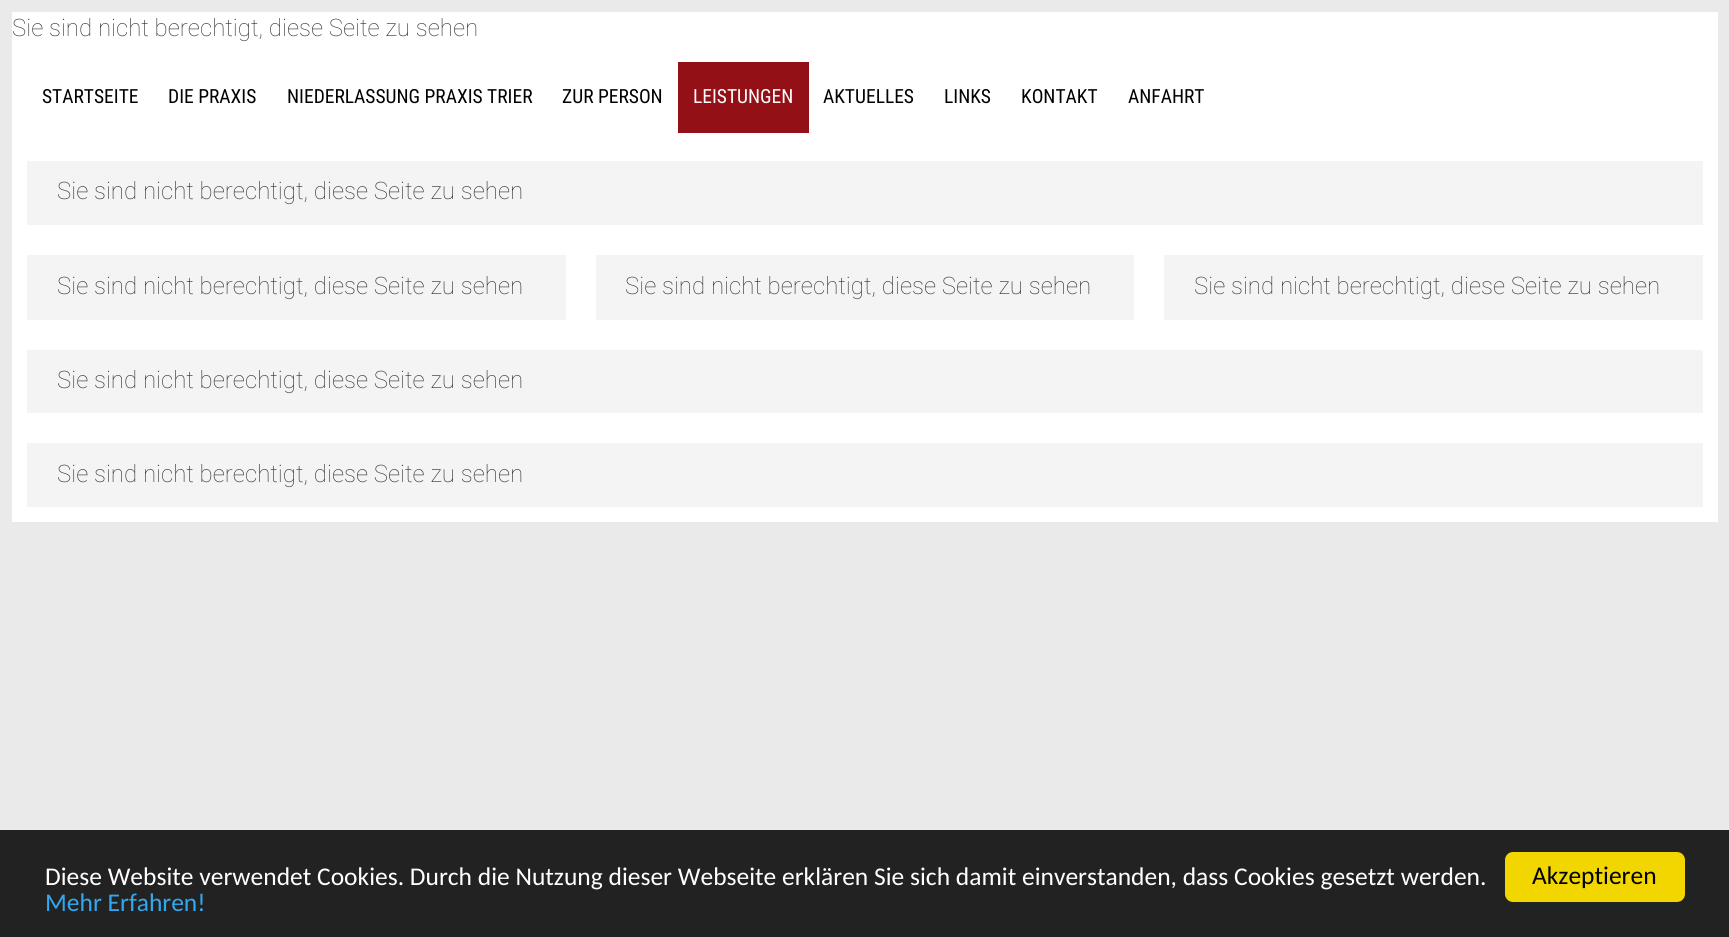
#include <cairo/cairo.h>
#include <math.h>
#include <stddef.h>

static cairo_t *cr;

static void use_color(int r, int g, int b) {
  cairo_set_source_rgb(cr, r / 255.0, g / 255.0, b / 255.0);
}

static void text(double x, double y, const char *s, const char *family, double size, int italic, int bold, int r, int g, int b) {
  cairo_select_font_face(cr, family, italic ? CAIRO_FONT_SLANT_ITALIC : CAIRO_FONT_SLANT_NORMAL,
    bold ? CAIRO_FONT_WEIGHT_BOLD : CAIRO_FONT_WEIGHT_NORMAL);
  cairo_set_font_size(cr, size);
  use_color(r, g, b);
  cairo_move_to(cr, x, y);
  cairo_show_text(cr, s);
}

static void box(double x, double y, double w, double h, int r, int g, int b) {
  use_color(r, g, b);
  cairo_rectangle(cr, x, y, w, h);
  cairo_fill(cr);
}

static void round_rect(double x, double y, double w, double h, double r) {
  cairo_new_sub_path(cr);
  cairo_arc(cr, x + w - r, y + h - r, r, 0, M_PI / 2);
  cairo_arc(cr, x + r, y + h - r, r, M_PI / 2, M_PI);
  cairo_arc(cr, x + r, y + r, r, M_PI, 1.5 * M_PI);
  cairo_arc(cr, x + w - r, y + r, r, 1.5 * M_PI, 2 * M_PI);
  cairo_close_path(cr);
}

static void draw(void) {
  use_color(234, 234, 234);
  cairo_paint(cr);
  box(12, 12, 1706, 510, 255, 255, 255);
  box(678, 62, 131, 71, 147, 16, 23);
  box(27, 161, 1676, 64, 245, 244, 244);
  box(27, 255, 539, 65, 245, 244, 244);
  box(596, 255, 538, 65, 245, 244, 244);
  box(1164, 255, 539, 65, 245, 244, 244);
  box(27, 350, 1676, 63, 245, 244, 244);
  box(27, 443, 1676, 64, 245, 244, 244);
  box(0, 830, 1729, 107, 34, 34, 34);
  use_color(241, 214, 0);
  round_rect(1505, 852, 180, 50, 8);
  cairo_fill(cr);
  text(12, 36, "Sie sind nicht berechtigt, diese Seite zu sehen", "Roboto Thin", 24, 0, 0, 51, 51, 51);
  text(42, 103, "STARTSEITE", "Roboto Condensed", 19.5, 0, 0, 0, 0, 0);
  text(168, 103, "DIE PRAXIS", "Roboto Condensed", 19.5, 0, 0, 0, 0, 0);
  text(287, 103, "NIEDERLASSUNG PRAXIS TRIER", "Roboto Condensed", 19.5, 0, 0, 0, 0, 0);
  text(562, 103, "ZUR PERSON", "Roboto Condensed", 19.5, 0, 0, 0, 0, 0);
  text(693, 103, "LEISTUNGEN", "Roboto Condensed", 19.5, 0, 0, 255, 255, 255);
  text(823, 103, "AKTUELLES", "Roboto Condensed", 19.5, 0, 0, 0, 0, 0);
  text(944, 103, "LINKS", "Roboto Condensed", 19.5, 0, 0, 0, 0, 0);
  text(1021, 103, "KONTAKT", "Roboto Condensed", 19.5, 0, 0, 0, 0, 0);
  text(1128, 103, "ANFAHRT", "Roboto Condensed", 19.5, 0, 0, 0, 0, 0);
  text(57, 199, "Sie sind nicht berechtigt, diese Seite zu sehen", "Roboto Thin", 24, 0, 0, 51, 51, 51);
  text(57, 294, "Sie sind nicht berechtigt, diese Seite zu sehen", "Roboto Thin", 24, 0, 0, 51, 51, 51);
  text(625, 294, "Sie sind nicht berechtigt, diese Seite zu sehen", "Roboto Thin", 24, 0, 0, 51, 51, 51);
  text(1194, 294, "Sie sind nicht berechtigt, diese Seite zu sehen", "Roboto Thin", 24, 0, 0, 51, 51, 51);
  text(57, 388, "Sie sind nicht berechtigt, diese Seite zu sehen", "Roboto Thin", 24, 0, 0, 51, 51, 51);
  text(57, 482, "Sie sind nicht berechtigt, diese Seite zu sehen", "Roboto Thin", 24, 0, 0, 51, 51, 51);
  text(45, 885, "Diese Website verwendet Cookies. Durch die Nutzung dieser Webseite erklären Sie sich damit einverstanden, dass Cookies gesetzt werden.", "Carlito", 25.5, 0, 0, 255, 255, 255);
  text(45, 911, "Mehr Erfahren!", "Carlito", 25.5, 0, 0, 49, 168, 240);
  text(1532, 884, "Akzeptieren", "Carlito", 25.5, 0, 0, 0, 0, 0);
}

int main(void) {
  cairo_surface_t *surface = cairo_image_surface_create(CAIRO_FORMAT_RGB24, 1729, 937);
  cr = cairo_create(surface);
  cairo_font_options_t *options = cairo_font_options_create();
  cairo_font_options_set_hint_metrics(options, CAIRO_HINT_METRICS_OFF);
  cairo_font_options_set_hint_style(options, CAIRO_HINT_STYLE_NONE);
  cairo_set_font_options(cr, options);
  cairo_set_miter_limit(cr, 4);
  draw();
  cairo_surface_write_to_png(surface, "out.png");
  cairo_font_options_destroy(options);
  cairo_destroy(cr);
  cairo_surface_destroy(surface);
  return 0;
}
